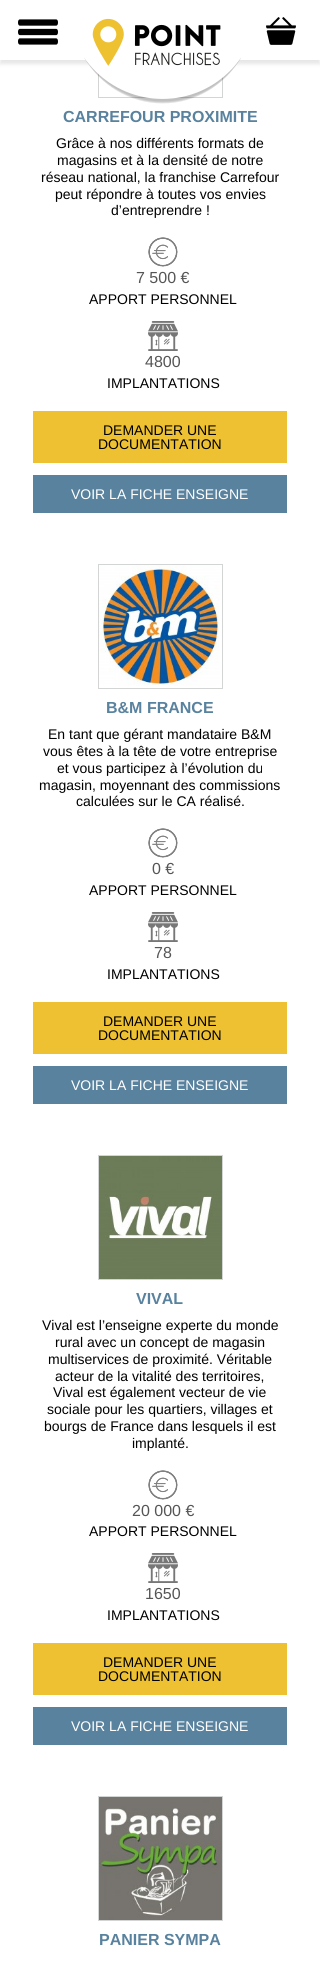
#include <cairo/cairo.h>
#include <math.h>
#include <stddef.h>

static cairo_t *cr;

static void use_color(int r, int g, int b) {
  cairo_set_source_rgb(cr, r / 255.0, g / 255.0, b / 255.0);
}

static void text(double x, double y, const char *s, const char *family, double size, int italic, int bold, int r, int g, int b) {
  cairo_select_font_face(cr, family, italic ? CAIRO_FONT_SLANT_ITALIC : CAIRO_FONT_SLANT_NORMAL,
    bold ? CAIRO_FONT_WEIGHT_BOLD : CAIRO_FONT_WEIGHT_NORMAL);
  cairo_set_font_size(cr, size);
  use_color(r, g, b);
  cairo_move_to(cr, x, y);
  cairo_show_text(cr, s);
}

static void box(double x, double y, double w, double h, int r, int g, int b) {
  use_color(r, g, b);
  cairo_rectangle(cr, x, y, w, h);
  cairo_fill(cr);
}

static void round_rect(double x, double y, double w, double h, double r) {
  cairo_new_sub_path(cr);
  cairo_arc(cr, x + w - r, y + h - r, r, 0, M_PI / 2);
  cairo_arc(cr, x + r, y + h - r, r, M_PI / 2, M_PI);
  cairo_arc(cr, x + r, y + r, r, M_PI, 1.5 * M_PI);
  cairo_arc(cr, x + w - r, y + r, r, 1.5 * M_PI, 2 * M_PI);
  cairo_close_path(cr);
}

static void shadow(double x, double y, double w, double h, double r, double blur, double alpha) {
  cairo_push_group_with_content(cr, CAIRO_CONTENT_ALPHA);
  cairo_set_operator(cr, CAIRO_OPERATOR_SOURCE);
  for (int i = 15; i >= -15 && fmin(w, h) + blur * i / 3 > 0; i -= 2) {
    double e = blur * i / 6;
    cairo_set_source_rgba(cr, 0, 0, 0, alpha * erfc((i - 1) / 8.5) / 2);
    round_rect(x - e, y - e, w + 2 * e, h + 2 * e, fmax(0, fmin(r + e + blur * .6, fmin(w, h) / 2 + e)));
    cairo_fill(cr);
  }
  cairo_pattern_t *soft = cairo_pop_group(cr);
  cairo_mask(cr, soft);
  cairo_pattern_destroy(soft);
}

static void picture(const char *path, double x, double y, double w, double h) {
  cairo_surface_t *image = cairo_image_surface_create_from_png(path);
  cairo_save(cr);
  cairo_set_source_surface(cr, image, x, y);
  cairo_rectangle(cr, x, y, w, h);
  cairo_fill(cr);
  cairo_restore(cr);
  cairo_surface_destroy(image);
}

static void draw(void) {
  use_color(255, 255, 255);
  cairo_paint(cr);
  cairo_rectangle(cr, 98.5, -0.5, 124, 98);
  use_color(211, 213, 212);
  cairo_set_line_width(cr, 1);
  cairo_stroke(cr);
  use_color(0, 0, 0);
  shadow(0, 4, 320, 60, 0, 2, 0.1);
  box(0, 0, 320, 60, 255, 255, 255);
  picture("img_01.png", 18, 19, 40, 26);
  picture("img_04.png", 109, 82, 3, 2);
  picture("img_02.png", 84, 18, 157, 86);
  picture("img_03.png", 266, 17, 30, 28);
  picture("img_05.png", 148, 237, 30, 30);
  picture("img_06.png", 148, 321, 30, 30);
  box(33, 411, 254, 52, 238, 193, 50);
  box(33, 475, 254, 38, 89, 130, 158);
  cairo_rectangle(cr, 98.5, 564.5, 124, 124);
  use_color(211, 213, 212);
  cairo_stroke(cr);
  picture("img_07.png", 99, 565, 121, 121);
  picture("img_05.png", 148, 828, 30, 30);
  picture("img_06.png", 148, 912, 30, 30);
  box(33, 1002, 254, 52, 238, 193, 50);
  box(33, 1066, 254, 38, 89, 130, 158);
  cairo_rectangle(cr, 98.5, 1155.5, 124, 124);
  use_color(211, 213, 212);
  cairo_stroke(cr);
  picture("img_08.png", 99, 1156, 123, 123);
  picture("img_05.png", 148, 1470, 30, 30);
  picture("img_06.png", 148, 1553, 30, 30);
  box(33, 1643, 254, 52, 238, 193, 50);
  box(33, 1707, 254, 38, 89, 130, 158);
  cairo_rectangle(cr, 98.5, 1796.5, 124, 124);
  use_color(211, 213, 212);
  cairo_stroke(cr);
  picture("img_09.png", 99, 1797, 123, 123);
  text(63, 122, "CARREFOUR PROXIMITE", "Liberation Sans", 16, 0, 1, 89, 130, 158);
  text(56, 148, "Grâce à nos différents formats de", "Liberation Sans", 14, 0, 0, 0, 0, 0);
  text(57, 165, "magasins et à la densité de notre", "Liberation Sans", 14, 0, 0, 0, 0, 0);
  text(41, 182, "réseau national, la franchise Carrefour", "Liberation Sans", 14, 0, 0, 0, 0, 0);
  text(55, 199, "peut répondre à toutes vos envies", "Liberation Sans", 14, 0, 0, 0, 0, 0);
  text(111, 215, "d’entreprendre !", "Liberation Sans", 14, 0, 0, 0, 0, 0);
  text(136, 283, "7 500 €", "Liberation Sans", 16, 0, 0, 85, 85, 85);
  text(89, 304, "APPORT PERSONNEL", "Liberation Sans", 14, 0, 0, 0, 0, 0);
  text(145, 367, "4800", "Liberation Sans", 16, 0, 0, 85, 85, 85);
  text(107, 388, "IMPLANTATIONS", "Liberation Sans", 14, 0, 0, 0, 0, 0);
  text(103, 435, "DEMANDER UNE", "Liberation Sans", 14, 0, 0, 0, 0, 0);
  text(98, 449, "DOCUMENTATION", "Liberation Sans", 14, 0, 0, 0, 0, 0);
  text(71, 499, "VOIR LA FICHE ENSEIGNE", "Liberation Sans", 14, 0, 0, 255, 255, 255);
  text(106, 713, "B&M FRANCE", "Liberation Sans", 16, 0, 1, 89, 130, 158);
  text(48, 739, "En tant que gérant mandataire B&M", "Liberation Sans", 14, 0, 0, 0, 0, 0);
  text(43, 756, "vous êtes à la tête de votre entreprise", "Liberation Sans", 14, 0, 0, 0, 0, 0);
  text(57, 773, "et vous participez à l’évolution du", "Liberation Sans", 14, 0, 0, 0, 0, 0);
  text(39, 790, "magasin, moyennant des commissions", "Liberation Sans", 14, 0, 0, 0, 0, 0);
  text(76, 806, "calculées sur le CA réalisé.", "Liberation Sans", 14, 0, 0, 0, 0, 0);
  text(152, 874, "0 €", "Liberation Sans", 16, 0, 0, 85, 85, 85);
  text(89, 895, "APPORT PERSONNEL", "Liberation Sans", 14, 0, 0, 0, 0, 0);
  text(154, 958, "78", "Liberation Sans", 16, 0, 0, 85, 85, 85);
  text(107, 979, "IMPLANTATIONS", "Liberation Sans", 14, 0, 0, 0, 0, 0);
  text(103, 1026, "DEMANDER UNE", "Liberation Sans", 14, 0, 0, 0, 0, 0);
  text(98, 1040, "DOCUMENTATION", "Liberation Sans", 14, 0, 0, 0, 0, 0);
  text(71, 1090, "VOIR LA FICHE ENSEIGNE", "Liberation Sans", 14, 0, 0, 255, 255, 255);
  text(136, 1304, "VIVAL", "Liberation Sans", 16, 0, 1, 89, 130, 158);
  text(42, 1330, "Vival est l’enseigne experte du monde", "Liberation Sans", 14, 0, 0, 0, 0, 0);
  text(55, 1347, "rural avec un concept de magasin", "Liberation Sans", 14, 0, 0, 0, 0, 0);
  text(48, 1364, "multiservices de proximité. Véritable", "Liberation Sans", 14, 0, 0, 0, 0, 0);
  text(55, 1381, "acteur de la vitalité des territoires,", "Liberation Sans", 14, 0, 0, 0, 0, 0);
  text(53, 1397, "Vival est également vecteur de vie", "Liberation Sans", 14, 0, 0, 0, 0, 0);
  text(47, 1414, "sociale pour les quartiers, villages et", "Liberation Sans", 14, 0, 0, 0, 0, 0);
  text(44, 1431, "bourgs de France dans lesquels il est", "Liberation Sans", 14, 0, 0, 0, 0, 0);
  text(132, 1448, "implanté.", "Liberation Sans", 14, 0, 0, 0, 0, 0);
  text(132, 1516, "20 000 €", "Liberation Sans", 16, 0, 0, 85, 85, 85);
  text(89, 1536, "APPORT PERSONNEL", "Liberation Sans", 14, 0, 0, 0, 0, 0);
  text(145, 1599, "1650", "Liberation Sans", 16, 0, 0, 85, 85, 85);
  text(107, 1620, "IMPLANTATIONS", "Liberation Sans", 14, 0, 0, 0, 0, 0);
  text(103, 1667, "DEMANDER UNE", "Liberation Sans", 14, 0, 0, 0, 0, 0);
  text(98, 1681, "DOCUMENTATION", "Liberation Sans", 14, 0, 0, 0, 0, 0);
  text(71, 1731, "VOIR LA FICHE ENSEIGNE", "Liberation Sans", 14, 0, 0, 255, 255, 255);
  text(99, 1945, "PANIER SYMPA", "Liberation Sans", 16, 0, 1, 89, 130, 158);
}

int main(void) {
  cairo_surface_t *surface = cairo_image_surface_create(CAIRO_FORMAT_RGB24, 320, 1965);
  cr = cairo_create(surface);
  cairo_font_options_t *options = cairo_font_options_create();
  cairo_font_options_set_hint_metrics(options, CAIRO_HINT_METRICS_OFF);
  cairo_font_options_set_hint_style(options, CAIRO_HINT_STYLE_NONE);
  cairo_set_font_options(cr, options);
  cairo_set_miter_limit(cr, 4);
  draw();
  cairo_surface_write_to_png(surface, "out.png");
  cairo_font_options_destroy(options);
  cairo_destroy(cr);
  cairo_surface_destroy(surface);
  return 0;
}
